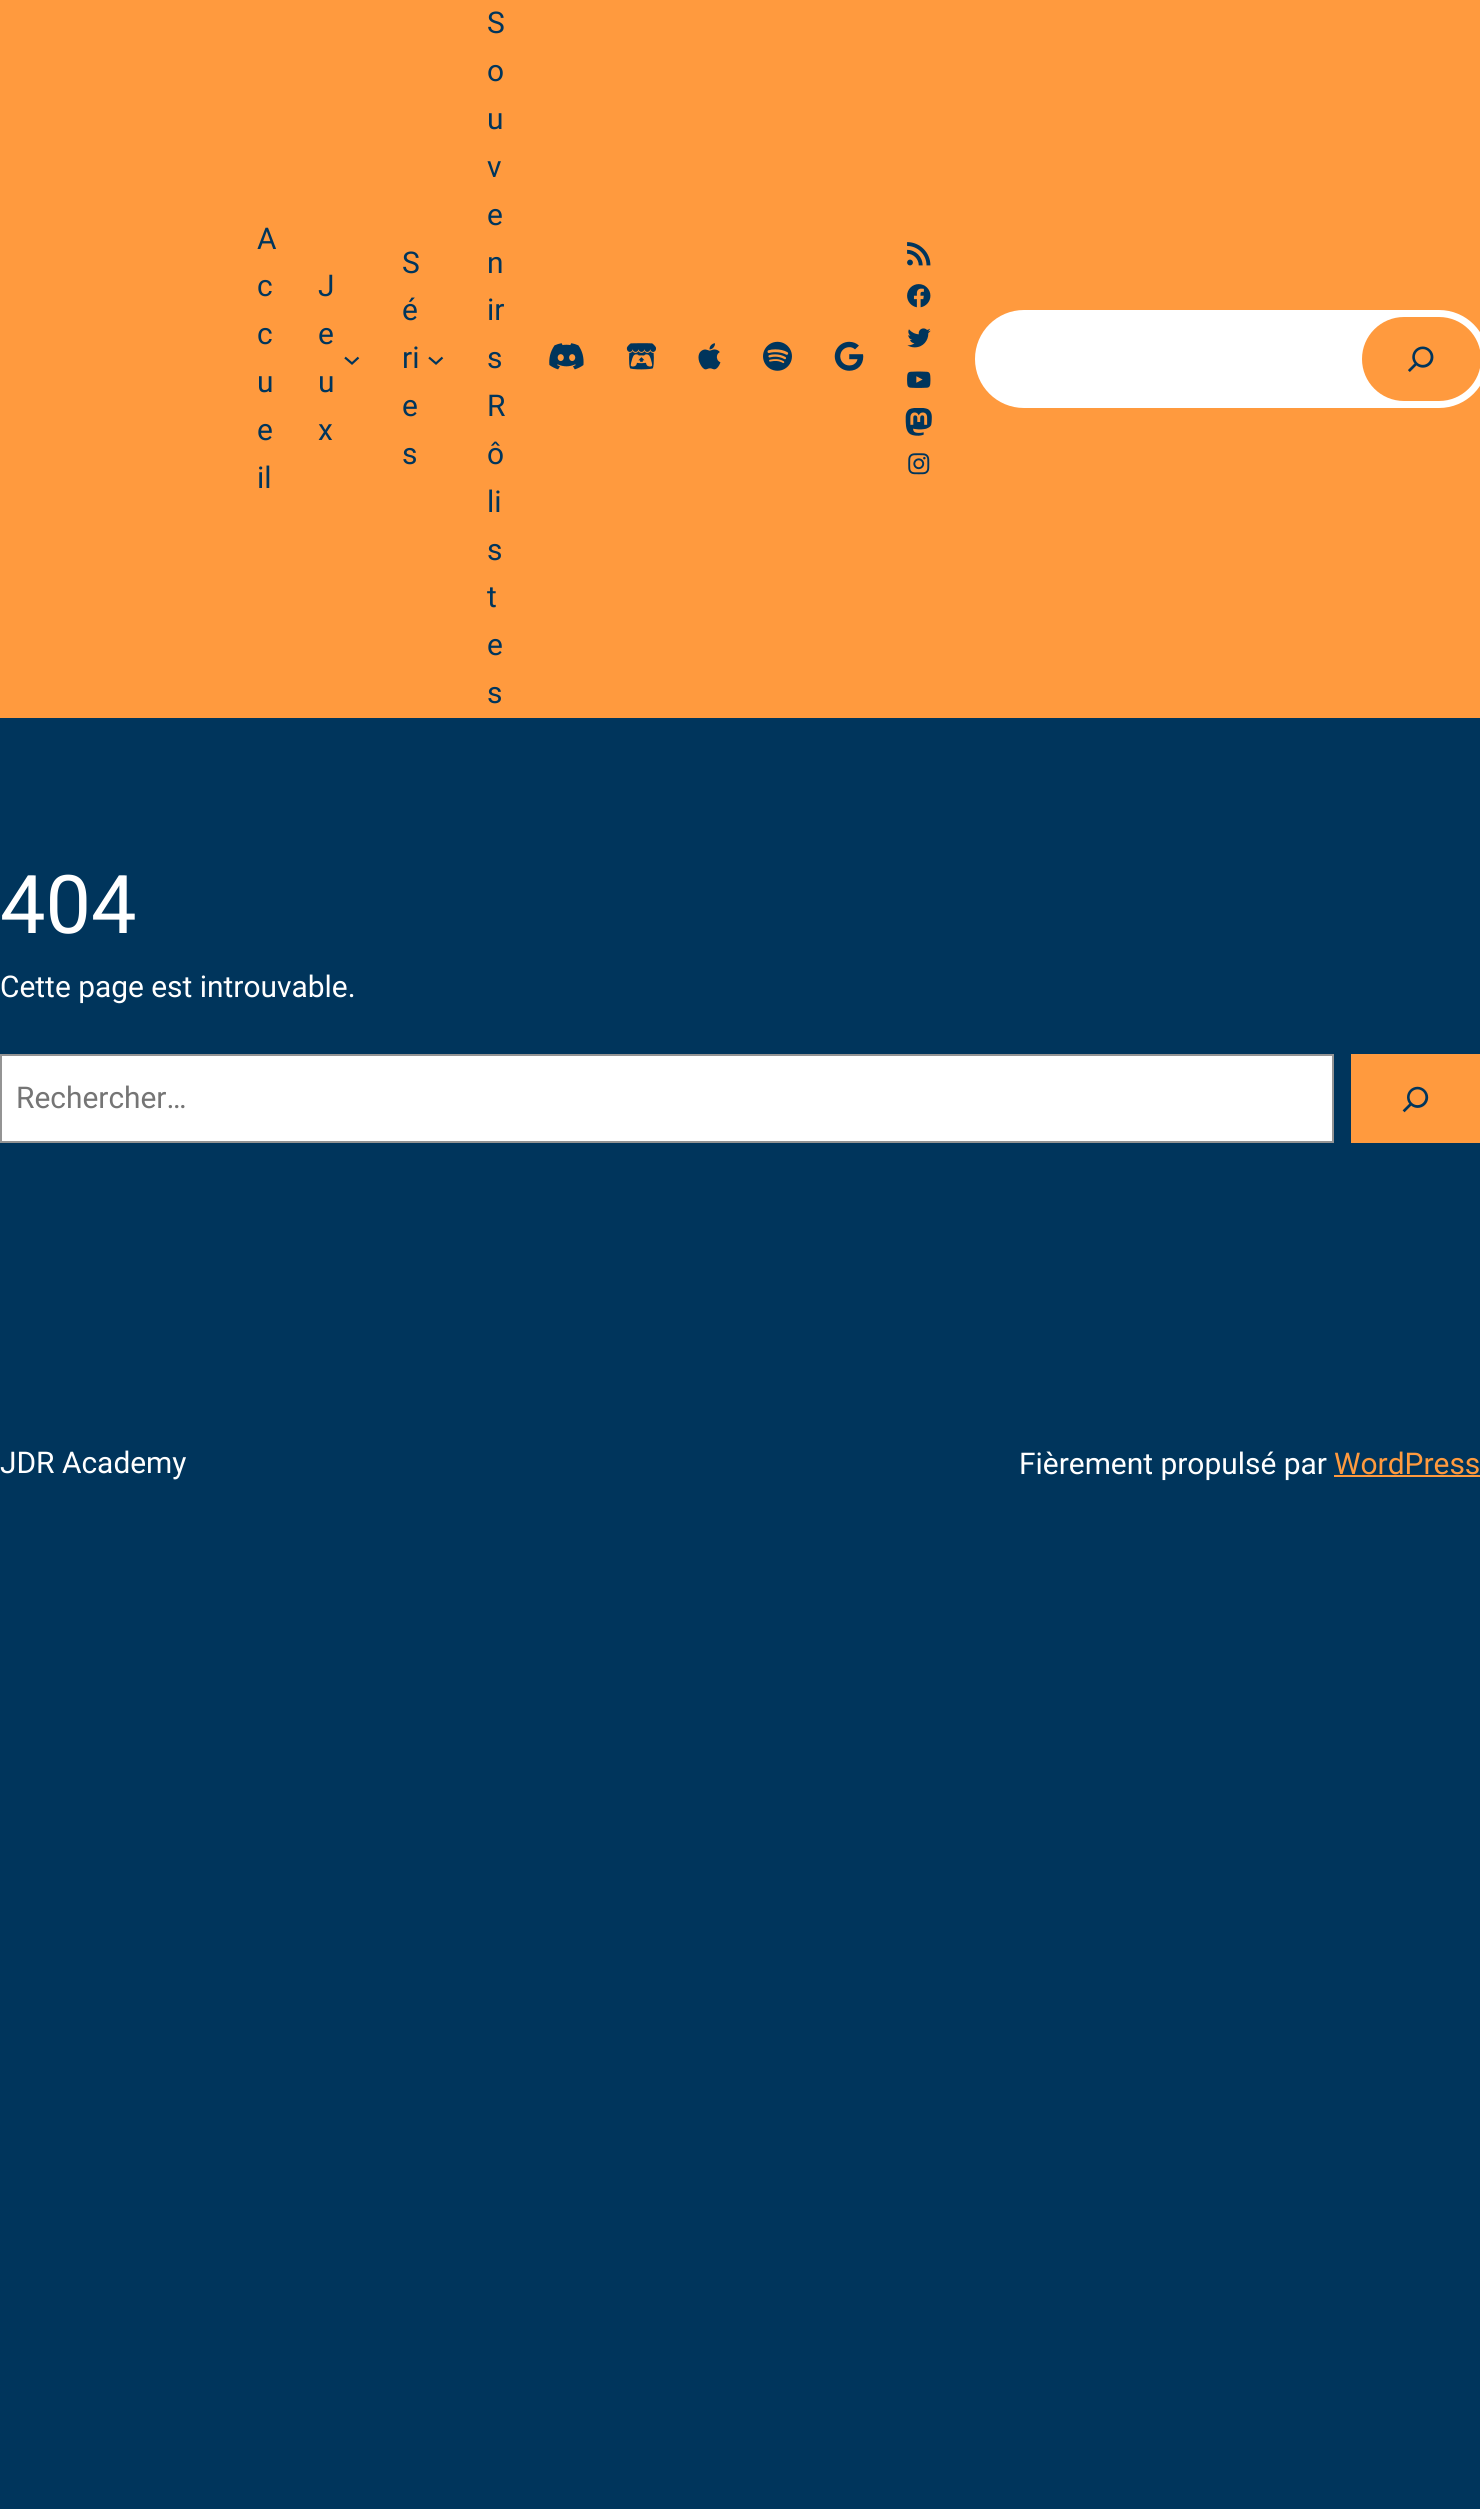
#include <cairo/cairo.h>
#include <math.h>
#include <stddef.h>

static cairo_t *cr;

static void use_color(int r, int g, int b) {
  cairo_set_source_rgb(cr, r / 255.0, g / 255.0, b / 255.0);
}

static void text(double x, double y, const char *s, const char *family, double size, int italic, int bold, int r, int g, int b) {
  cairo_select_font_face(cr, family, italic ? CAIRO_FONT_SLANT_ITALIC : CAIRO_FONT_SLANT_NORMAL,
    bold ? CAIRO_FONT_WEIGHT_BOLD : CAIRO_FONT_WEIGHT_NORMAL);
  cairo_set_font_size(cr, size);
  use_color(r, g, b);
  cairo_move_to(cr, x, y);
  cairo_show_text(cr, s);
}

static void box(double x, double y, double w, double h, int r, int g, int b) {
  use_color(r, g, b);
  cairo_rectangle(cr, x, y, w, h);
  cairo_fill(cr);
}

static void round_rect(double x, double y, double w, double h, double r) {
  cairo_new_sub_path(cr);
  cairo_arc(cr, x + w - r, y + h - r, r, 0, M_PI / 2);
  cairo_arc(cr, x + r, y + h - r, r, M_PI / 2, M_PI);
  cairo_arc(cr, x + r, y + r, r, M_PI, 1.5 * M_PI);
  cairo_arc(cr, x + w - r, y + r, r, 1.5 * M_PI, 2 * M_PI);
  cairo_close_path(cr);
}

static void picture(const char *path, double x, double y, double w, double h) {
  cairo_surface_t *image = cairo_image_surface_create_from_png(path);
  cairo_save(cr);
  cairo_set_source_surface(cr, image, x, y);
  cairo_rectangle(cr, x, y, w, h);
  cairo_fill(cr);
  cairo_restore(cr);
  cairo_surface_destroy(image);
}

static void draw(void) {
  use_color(0, 53, 92);
  cairo_paint(cr);
  box(0, 0, 1480, 718, 255, 154, 62);
  cairo_new_path(cr);
  cairo_move_to(cr, 345, 357.5);
  cairo_line_to(cr, 352, 363.5);
  cairo_line_to(cr, 358.5, 357.5);
  use_color(0, 53, 92);
  cairo_set_line_width(cr, 2.2);
  cairo_stroke(cr);
  cairo_new_path(cr);
  cairo_move_to(cr, 429, 357.5);
  cairo_line_to(cr, 436, 363.5);
  cairo_line_to(cr, 442.5, 357.5);
  cairo_stroke(cr);
  picture("img_01.png", 549, 343, 35, 27);
  picture("img_02.png", 626, 343, 30, 27);
  picture("img_03.png", 698, 343, 23, 27);
  picture("img_04.png", 763, 341, 29, 30);
  picture("img_05.png", 834, 341, 30, 30);
  picture("img_06.png", 907, 242, 24, 24);
  picture("img_07.png", 907, 284, 24, 24);
  picture("img_08.png", 907, 328, 24, 20);
  picture("img_09.png", 907, 371, 24, 17);
  picture("img_10.png", 905, 408, 27, 28);
  picture("img_11.png", 908, 453, 22, 22);
  use_color(255, 255, 255);
  round_rect(975, 310, 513, 98, 49);
  cairo_fill(cr);
  use_color(255, 154, 62);
  round_rect(1362, 317, 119, 84, 42);
  cairo_fill(cr);
  picture("img_12.png", 1408, 346, 26, 26);
  use_color(255, 255, 255);
  cairo_rectangle(cr, 1, 1055, 1332, 87);
  cairo_fill_preserve(cr);
  use_color(148, 148, 148);
  cairo_set_line_width(cr, 2);
  cairo_stroke(cr);
  box(1351, 1054, 129, 89, 255, 154, 62);
  picture("img_13.png", 1402, 1086, 27, 27);
  box(1334, 1475, 146, 2, 255, 154, 62);
  text(257, 249, "A", "Roboto", 29.9, 0, 0, 0, 53, 92);
  text(257, 296, "c", "Roboto", 29.9, 0, 0, 0, 53, 92);
  text(257, 344, "c", "Roboto", 29.9, 0, 0, 0, 53, 92);
  text(257, 392, "u", "Roboto", 29.9, 0, 0, 0, 53, 92);
  text(257, 440, "e", "Roboto", 29.9, 0, 0, 0, 53, 92);
  text(257, 488, "il", "Roboto", 29.9, 0, 0, 0, 53, 92);
  text(318, 296, "J", "Roboto", 29.9, 0, 0, 0, 53, 92);
  text(318, 344, "e", "Roboto", 29.9, 0, 0, 0, 53, 92);
  text(318, 392, "u", "Roboto", 29.9, 0, 0, 0, 53, 92);
  text(318, 440, "x", "Roboto", 29.9, 0, 0, 0, 53, 92);
  text(402, 273, "S", "Roboto", 29.9, 0, 0, 0, 53, 92);
  text(402, 320, "é", "Roboto", 29.9, 0, 0, 0, 53, 92);
  text(402, 368, "ri", "Roboto", 29.9, 0, 0, 0, 53, 92);
  text(402, 416, "e", "Roboto", 29.9, 0, 0, 0, 53, 92);
  text(402, 464, "s", "Roboto", 29.9, 0, 0, 0, 53, 92);
  text(487, 33, "S", "Roboto", 29.9, 0, 0, 0, 53, 92);
  text(487, 81, "o", "Roboto", 29.9, 0, 0, 0, 53, 92);
  text(487, 129, "u", "Roboto", 29.9, 0, 0, 0, 53, 92);
  text(487, 177, "v", "Roboto", 29.9, 0, 0, 0, 53, 92);
  text(487, 225, "e", "Roboto", 29.9, 0, 0, 0, 53, 92);
  text(487, 273, "n", "Roboto", 29.9, 0, 0, 0, 53, 92);
  text(487, 320, "ir", "Roboto", 29.9, 0, 0, 0, 53, 92);
  text(487, 368, "s", "Roboto", 29.9, 0, 0, 0, 53, 92);
  text(487, 416, "R", "Roboto", 29.9, 0, 0, 0, 53, 92);
  text(487, 464, "ô", "Roboto", 29.9, 0, 0, 0, 53, 92);
  text(487, 512, "li", "Roboto", 29.9, 0, 0, 0, 53, 92);
  text(487, 560, "s", "Roboto", 29.9, 0, 0, 0, 53, 92);
  text(487, 607, "t", "Roboto", 29.9, 0, 0, 0, 53, 92);
  text(487, 655, "e", "Roboto", 29.9, 0, 0, 0, 53, 92);
  text(487, 703, "s", "Roboto", 29.9, 0, 0, 0, 53, 92);
  text(0, 933, "404", "Roboto", 81, 0, 0, 255, 255, 255);
  text(0, 997, "Cette page est introuvable.", "Roboto", 29.9, 0, 0, 255, 255, 255);
  text(16, 1108, "Rechercher…", "Roboto", 29.9, 0, 0, 117, 117, 117);
  text(0, 1473, "JDR Academy", "Roboto", 29.9, 0, 0, 255, 255, 255);
  text(1019, 1474, "Fièrement propulsé par", "Roboto", 29.9, 0, 0, 255, 255, 255);
  text(1334, 1474, "WordPress", "Roboto", 29.9, 0, 0, 255, 154, 62);
}

int main(void) {
  cairo_surface_t *surface = cairo_image_surface_create(CAIRO_FORMAT_RGB24, 1480, 2509);
  cr = cairo_create(surface);
  cairo_font_options_t *options = cairo_font_options_create();
  cairo_font_options_set_hint_metrics(options, CAIRO_HINT_METRICS_OFF);
  cairo_font_options_set_hint_style(options, CAIRO_HINT_STYLE_NONE);
  cairo_set_font_options(cr, options);
  cairo_set_miter_limit(cr, 4);
  draw();
  cairo_surface_write_to_png(surface, "out.png");
  cairo_font_options_destroy(options);
  cairo_destroy(cr);
  cairo_surface_destroy(surface);
  return 0;
}
